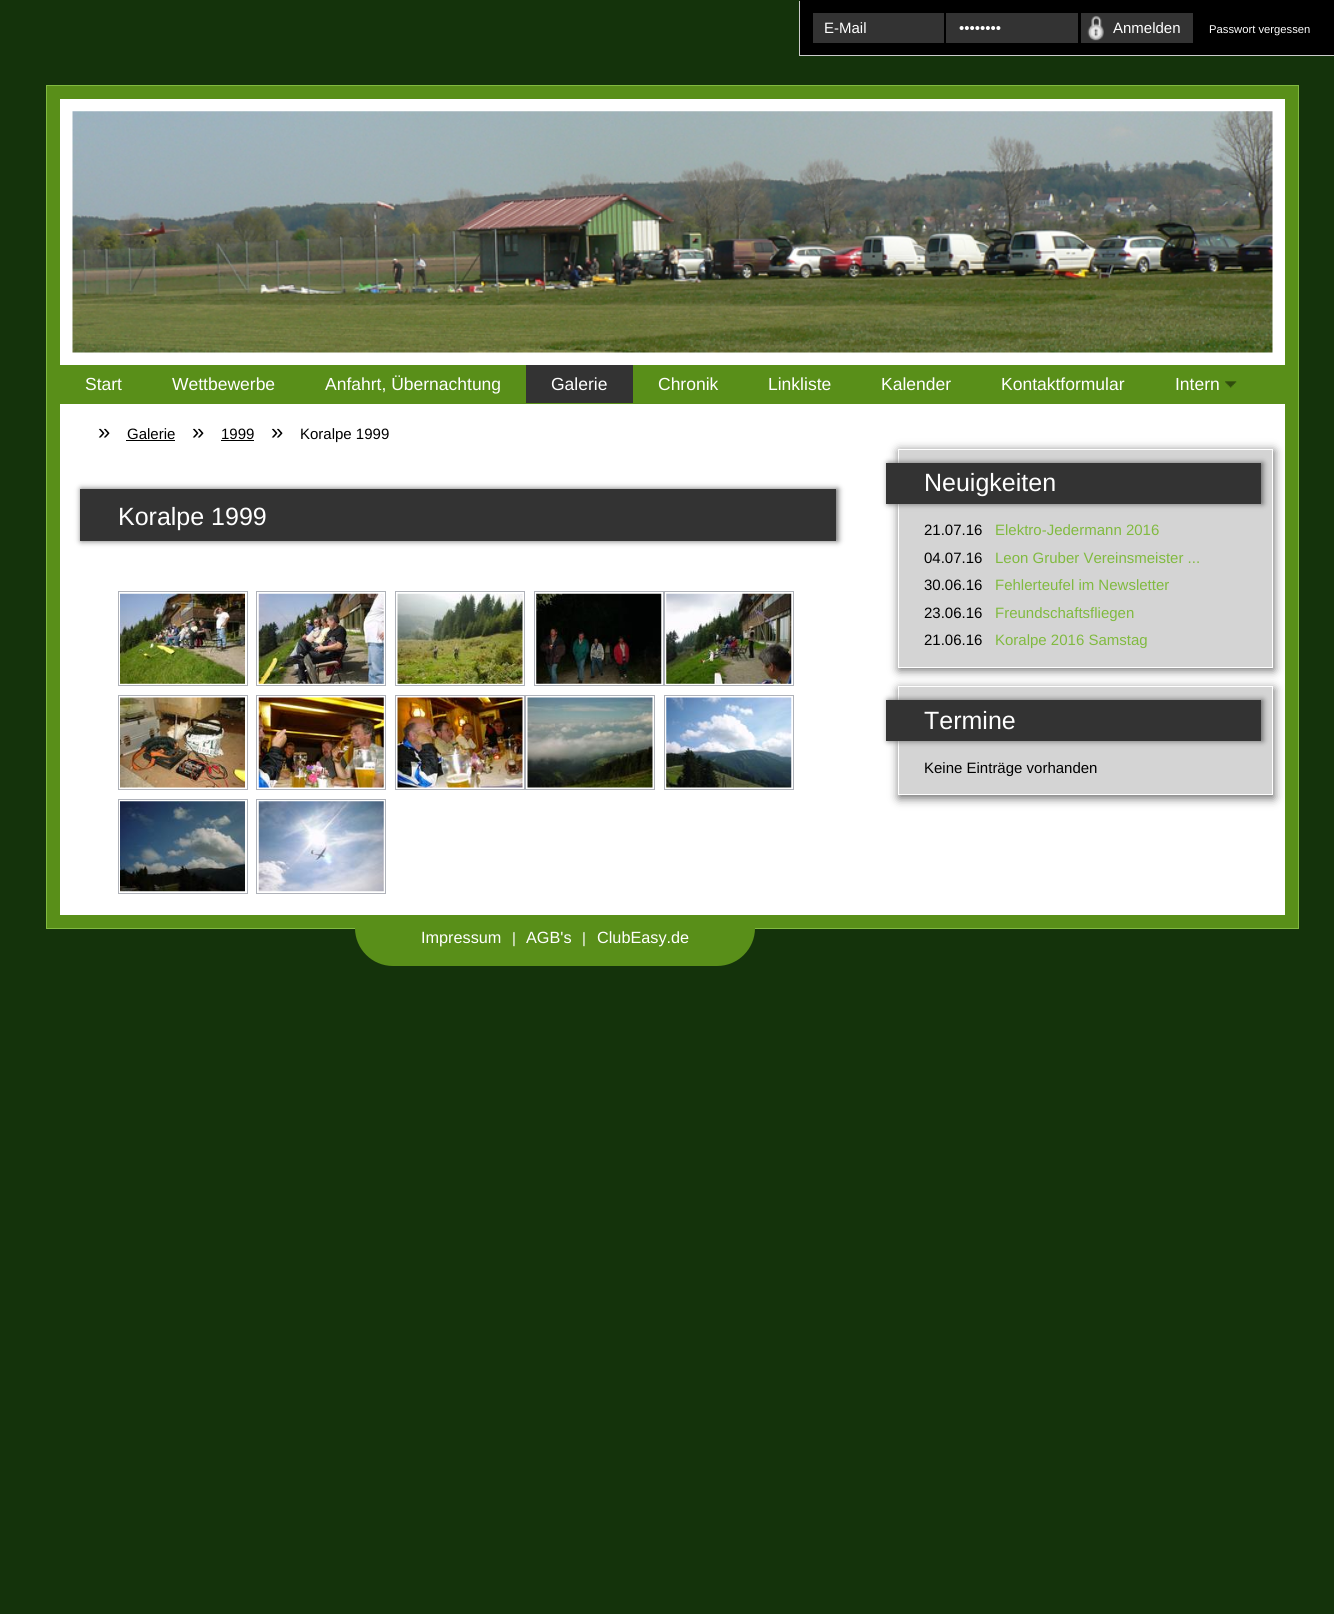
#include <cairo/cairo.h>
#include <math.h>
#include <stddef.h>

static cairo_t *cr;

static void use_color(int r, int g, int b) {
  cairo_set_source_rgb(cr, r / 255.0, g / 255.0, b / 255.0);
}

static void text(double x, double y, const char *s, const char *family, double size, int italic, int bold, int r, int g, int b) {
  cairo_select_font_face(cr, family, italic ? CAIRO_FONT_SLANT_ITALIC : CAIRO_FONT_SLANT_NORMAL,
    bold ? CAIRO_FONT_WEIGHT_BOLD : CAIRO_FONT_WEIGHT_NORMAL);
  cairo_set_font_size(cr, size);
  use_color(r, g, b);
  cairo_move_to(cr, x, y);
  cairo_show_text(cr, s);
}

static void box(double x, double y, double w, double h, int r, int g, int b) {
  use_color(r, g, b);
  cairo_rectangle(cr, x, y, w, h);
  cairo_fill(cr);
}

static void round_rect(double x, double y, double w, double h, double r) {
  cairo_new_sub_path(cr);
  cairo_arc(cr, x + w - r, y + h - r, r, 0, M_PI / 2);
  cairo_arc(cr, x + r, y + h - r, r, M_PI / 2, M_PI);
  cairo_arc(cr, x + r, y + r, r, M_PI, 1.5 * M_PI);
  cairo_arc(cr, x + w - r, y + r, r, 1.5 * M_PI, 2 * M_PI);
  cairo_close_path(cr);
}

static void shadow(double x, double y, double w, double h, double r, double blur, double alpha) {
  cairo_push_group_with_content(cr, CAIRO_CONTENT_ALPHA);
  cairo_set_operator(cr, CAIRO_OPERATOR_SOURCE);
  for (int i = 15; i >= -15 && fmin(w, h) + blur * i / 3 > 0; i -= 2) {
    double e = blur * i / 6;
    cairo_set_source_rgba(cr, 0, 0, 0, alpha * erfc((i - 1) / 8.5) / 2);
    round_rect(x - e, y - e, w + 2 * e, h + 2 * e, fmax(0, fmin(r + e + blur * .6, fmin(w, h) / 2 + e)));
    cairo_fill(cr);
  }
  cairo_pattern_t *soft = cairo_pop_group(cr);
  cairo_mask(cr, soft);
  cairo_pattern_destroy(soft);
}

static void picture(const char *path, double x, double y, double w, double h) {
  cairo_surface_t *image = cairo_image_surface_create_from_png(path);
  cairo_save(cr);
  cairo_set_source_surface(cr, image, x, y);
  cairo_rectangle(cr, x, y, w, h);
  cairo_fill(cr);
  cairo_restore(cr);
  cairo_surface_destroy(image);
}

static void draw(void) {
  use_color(20, 51, 11);
  cairo_paint(cr);
  use_color(204, 204, 204);
  cairo_new_path(cr);
  cairo_move_to(cr, 799, 1);
  cairo_line_to(cr, 799, 56);
  cairo_line_to(cr, 1334, 56);
  cairo_line_to(cr, 1334, 55);
  cairo_line_to(cr, 800, 55);
  cairo_line_to(cr, 800, 1);
  cairo_close_path(cr);
  cairo_fill(cr);
  box(800, 0, 534, 55, 0, 0, 0);
  box(813, 13, 131, 30, 51, 51, 51);
  box(946, 13, 132, 30, 51, 51, 51);
  box(1081, 13, 112, 30, 51, 51, 51);
  picture("img_01.png", 1087, 15, 17, 26);
  use_color(89, 143, 25);
  cairo_rectangle(cr, 46.5, 85.5, 1252, 843);
  cairo_fill_preserve(cr);
  use_color(129, 186, 64);
  cairo_set_line_width(cr, 1);
  cairo_stroke(cr);
  cairo_rectangle(cr, 66.5, 105.5, 1212, 253);
  use_color(255, 255, 255);
  cairo_set_line_width(cr, 13);
  cairo_stroke(cr);
  picture("img_02.png", 72, 111, 1201, 242);
  box(60, 404, 1225, 511, 255, 255, 255);
  box(526, 365, 107, 38, 51, 51, 51);
  picture("img_03.png", 1225, 381, 12, 7);
  box(126, 440, 49, 1, 0, 0, 0);
  box(221, 440, 33, 1, 0, 0, 0);
  use_color(102, 102, 102);
  shadow(81, 489, 757, 52, 0, 3, 1);
  box(80, 489, 756, 52, 51, 51, 51);
  cairo_rectangle(cr, 118.5, 591.5, 129, 94);
  use_color(175, 178, 185);
  cairo_set_line_width(cr, 1);
  cairo_stroke(cr);
  picture("img_04.png", 120, 593, 125, 91);
  cairo_rectangle(cr, 256.5, 591.5, 129, 94);
  cairo_stroke(cr);
  picture("img_05.png", 258, 593, 126, 91);
  cairo_rectangle(cr, 395.5, 591.5, 129, 94);
  cairo_stroke(cr);
  picture("img_06.png", 397, 593, 126, 91);
  cairo_rectangle(cr, 534.5, 591.5, 129, 94);
  cairo_stroke(cr);
  picture("img_07.png", 536, 593, 126, 91);
  cairo_rectangle(cr, 664.5, 591.5, 129, 94);
  cairo_stroke(cr);
  picture("img_08.png", 666, 593, 126, 91);
  cairo_rectangle(cr, 118.5, 695.5, 129, 94);
  cairo_stroke(cr);
  picture("img_09.png", 120, 697, 125, 91);
  cairo_rectangle(cr, 256.5, 695.5, 129, 94);
  cairo_stroke(cr);
  picture("img_10.png", 258, 697, 126, 91);
  cairo_rectangle(cr, 395.5, 695.5, 129, 94);
  cairo_stroke(cr);
  picture("img_11.png", 397, 697, 126, 91);
  cairo_rectangle(cr, 525.5, 695.5, 129, 94);
  cairo_stroke(cr);
  picture("img_12.png", 527, 697, 126, 91);
  cairo_rectangle(cr, 664.5, 695.5, 129, 94);
  cairo_stroke(cr);
  picture("img_13.png", 666, 697, 126, 91);
  cairo_rectangle(cr, 118.5, 799.5, 129, 94);
  cairo_stroke(cr);
  picture("img_14.png", 120, 801, 125, 91);
  cairo_rectangle(cr, 256.5, 799.5, 129, 94);
  cairo_stroke(cr);
  picture("img_15.png", 258, 801, 126, 91);
  use_color(102, 102, 102);
  shadow(899, 451, 375, 219, 0, 5, 1);
  use_color(212, 212, 212);
  cairo_rectangle(cr, 898.5, 449.5, 374, 218);
  cairo_fill_preserve(cr);
  use_color(255, 255, 255);
  cairo_stroke(cr);
  use_color(102, 102, 102);
  shadow(888, 463, 375, 41, 0, 3, 1);
  box(886, 463, 375, 41, 51, 51, 51);
  use_color(102, 102, 102);
  shadow(899, 689, 375, 109, 0, 5, 1);
  use_color(212, 212, 212);
  cairo_rectangle(cr, 898.5, 686.5, 374, 108);
  cairo_fill_preserve(cr);
  use_color(255, 255, 255);
  cairo_stroke(cr);
  use_color(102, 102, 102);
  shadow(888, 700, 375, 41, 0, 3, 1);
  box(886, 700, 375, 41, 51, 51, 51);
  use_color(89, 143, 25);
  cairo_new_path(cr);
  cairo_move_to(cr, 355, 916);
  cairo_line_to(cr, 755, 916);
  cairo_line_to(cr, 755, 928);
  cairo_curve_to(cr, 755, 949, 738, 966, 717, 966);
  cairo_line_to(cr, 393, 966);
  cairo_curve_to(cr, 372, 966, 355, 949, 355, 928);
  cairo_close_path(cr);
  cairo_fill(cr);
  text(824, 33, "E-Mail", "Liberation Sans", 15, 0, 0, 255, 255, 255);
  text(959, 33, "••••••••", "Liberation Sans", 15, 0, 0, 255, 255, 255);
  text(1113, 33, "Anmelden", "Liberation Sans", 15, 0, 0, 255, 255, 255);
  text(1209, 33, "Passwort vergessen", "Liberation Sans", 11.25, 0, 0, 255, 255, 255);
  text(85, 390, "Start", "Liberation Sans", 17.5, 0, 0, 255, 255, 255);
  text(172, 390, "Wettbewerbe", "Liberation Sans", 17.5, 0, 0, 255, 255, 255);
  text(325, 390, "Anfahrt, Übernachtung", "Liberation Sans", 17.5, 0, 0, 255, 255, 255);
  text(551, 390, "Galerie", "Liberation Sans", 17.5, 0, 0, 255, 255, 255);
  text(658, 390, "Chronik", "Liberation Sans", 17.5, 0, 0, 255, 255, 255);
  text(768, 390, "Linkliste", "Liberation Sans", 17.5, 0, 0, 255, 255, 255);
  text(881, 390, "Kalender", "Liberation Sans", 17.5, 0, 0, 255, 255, 255);
  text(1001, 390, "Kontaktformular", "Liberation Sans", 17.5, 0, 0, 255, 255, 255);
  text(1175, 390, "Intern", "Liberation Sans", 17.5, 0, 0, 255, 255, 255);
  text(98, 439, "»", "Liberation Sans", 22, 0, 0, 0, 0, 0);
  text(127, 439, "Galerie", "Liberation Sans", 15, 0, 0, 0, 0, 0);
  text(192, 439, "»", "Liberation Sans", 22, 0, 0, 0, 0, 0);
  text(221, 439, "1999", "Liberation Sans", 15, 0, 0, 0, 0, 0);
  text(271, 439, "»", "Liberation Sans", 22, 0, 0, 0, 0, 0);
  text(300, 439, "Koralpe 1999", "Liberation Sans", 15, 0, 0, 0, 0, 0);
  text(118, 525, "Koralpe 1999", "Liberation Sans", 25, 0, 0, 255, 255, 255);
  text(924, 491, "Neuigkeiten", "Liberation Sans", 25, 0, 0, 255, 255, 255);
  text(924, 535, "21.07.16", "Liberation Sans", 15, 0, 0, 0, 0, 0);
  text(995, 535, "Elektro-Jedermann 2016", "Liberation Sans", 15, 0, 0, 129, 186, 64);
  text(924, 563, "04.07.16", "Liberation Sans", 15, 0, 0, 0, 0, 0);
  text(995, 563, "Leon Gruber Vereinsmeister ...", "Liberation Sans", 15, 0, 0, 129, 186, 64);
  text(924, 590, "30.06.16", "Liberation Sans", 15, 0, 0, 0, 0, 0);
  text(995, 590, "Fehlerteufel im Newsletter", "Liberation Sans", 15, 0, 0, 129, 186, 64);
  text(924, 618, "23.06.16", "Liberation Sans", 15, 0, 0, 0, 0, 0);
  text(995, 618, "Freundschaftsfliegen", "Liberation Sans", 15, 0, 0, 129, 186, 64);
  text(924, 645, "21.06.16", "Liberation Sans", 15, 0, 0, 0, 0, 0);
  text(995, 645, "Koralpe 2016 Samstag", "Liberation Sans", 15, 0, 0, 129, 186, 64);
  text(924, 729, "Termine", "Liberation Sans", 25, 0, 0, 255, 255, 255);
  text(924, 773, "Keine Einträge vorhanden", "Liberation Sans", 15, 0, 0, 0, 0, 0);
  text(421, 943, "Impressum", "Liberation Sans", 16.25, 0, 0, 255, 255, 255);
  text(512, 943, "|", "Liberation Sans", 15, 0, 0, 255, 255, 255);
  text(526, 943, "AGB's", "Liberation Sans", 16.25, 0, 0, 255, 255, 255);
  text(582, 943, "|", "Liberation Sans", 15, 0, 0, 255, 255, 255);
  text(597, 943, "ClubEasy.de", "Liberation Sans", 16.25, 0, 0, 255, 255, 255);
}

int main(void) {
  cairo_surface_t *surface = cairo_image_surface_create(CAIRO_FORMAT_RGB24, 1334, 1614);
  cr = cairo_create(surface);
  cairo_font_options_t *options = cairo_font_options_create();
  cairo_font_options_set_hint_metrics(options, CAIRO_HINT_METRICS_OFF);
  cairo_font_options_set_hint_style(options, CAIRO_HINT_STYLE_NONE);
  cairo_set_font_options(cr, options);
  cairo_set_miter_limit(cr, 4);
  draw();
  cairo_surface_write_to_png(surface, "out.png");
  cairo_font_options_destroy(options);
  cairo_destroy(cr);
  cairo_surface_destroy(surface);
  return 0;
}
